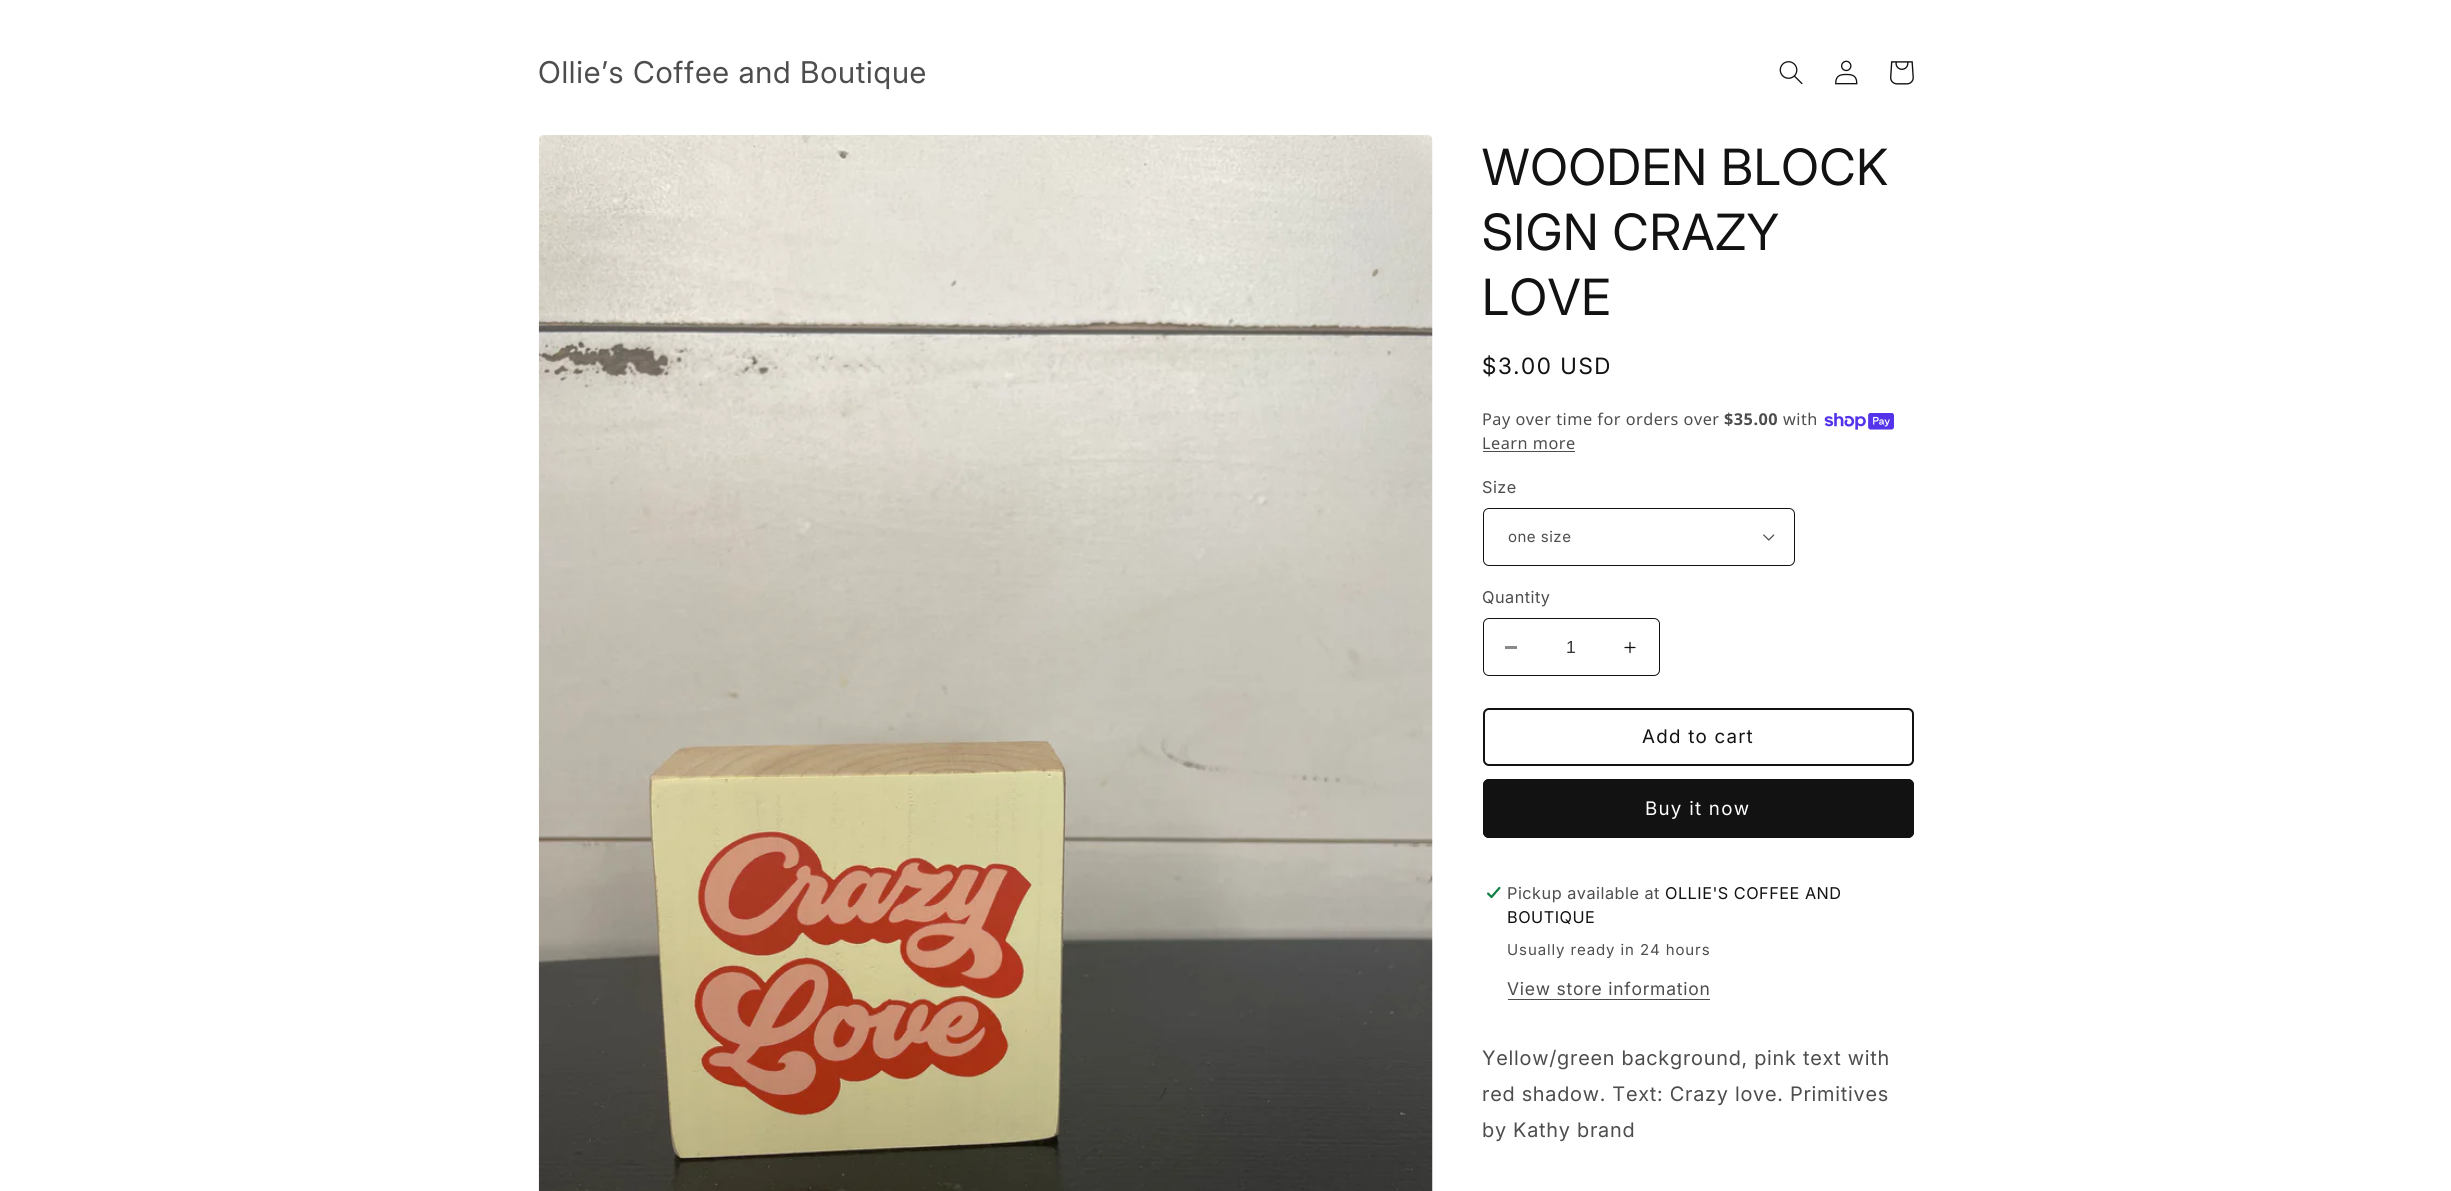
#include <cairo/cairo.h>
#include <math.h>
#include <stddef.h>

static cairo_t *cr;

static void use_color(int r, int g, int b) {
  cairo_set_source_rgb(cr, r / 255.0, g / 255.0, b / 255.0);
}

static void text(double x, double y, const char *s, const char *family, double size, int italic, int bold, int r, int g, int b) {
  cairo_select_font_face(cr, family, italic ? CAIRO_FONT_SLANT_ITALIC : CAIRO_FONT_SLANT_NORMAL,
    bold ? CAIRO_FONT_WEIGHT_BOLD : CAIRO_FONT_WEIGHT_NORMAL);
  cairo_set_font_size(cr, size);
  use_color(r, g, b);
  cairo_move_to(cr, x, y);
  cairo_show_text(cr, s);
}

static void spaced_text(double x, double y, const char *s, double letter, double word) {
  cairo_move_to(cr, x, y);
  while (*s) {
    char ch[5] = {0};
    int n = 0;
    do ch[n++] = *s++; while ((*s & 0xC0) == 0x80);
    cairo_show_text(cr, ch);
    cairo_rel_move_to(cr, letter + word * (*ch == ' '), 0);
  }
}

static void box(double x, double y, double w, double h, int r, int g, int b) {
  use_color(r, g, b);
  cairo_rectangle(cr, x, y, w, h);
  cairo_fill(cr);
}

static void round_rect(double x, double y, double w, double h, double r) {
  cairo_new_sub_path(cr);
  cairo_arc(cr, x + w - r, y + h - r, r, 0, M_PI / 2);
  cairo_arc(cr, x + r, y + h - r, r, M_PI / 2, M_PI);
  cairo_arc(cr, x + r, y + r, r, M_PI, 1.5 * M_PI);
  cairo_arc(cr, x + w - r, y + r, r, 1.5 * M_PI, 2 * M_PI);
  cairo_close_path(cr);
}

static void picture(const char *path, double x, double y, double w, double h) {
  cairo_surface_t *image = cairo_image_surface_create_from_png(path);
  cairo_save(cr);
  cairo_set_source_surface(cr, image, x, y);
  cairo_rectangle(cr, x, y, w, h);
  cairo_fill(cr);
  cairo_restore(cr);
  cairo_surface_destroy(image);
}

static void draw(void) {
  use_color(255, 255, 255);
  cairo_paint(cr);
  picture("img_01.png", 1779, 61, 24, 24);
  picture("img_02.png", 1835, 60, 23, 25);
  picture("img_03.png", 1890, 61, 24, 24);
  picture("img_04.png", 538, 135, 895, 1056);
  picture("img_05.png", 1824, 413, 70, 17);
  box(1483, 451, 92, 1, 77, 77, 77);
  picture("img_06.png", 1763, 534, 12, 7);
  round_rect(1483.5, 508.5, 311, 57, 5.5);
  use_color(18, 18, 18);
  cairo_set_line_width(cr, 1);
  cairo_stroke(cr);
  box(1505, 646, 12, 3, 137, 137, 137);
  picture("img_07.png", 1624, 641, 12, 13);
  round_rect(1483.5, 618.5, 176, 57, 5.5);
  use_color(18, 18, 18);
  cairo_stroke(cr);
  round_rect(1484, 709, 429, 56, 5);
  cairo_set_line_width(cr, 2);
  cairo_stroke(cr);
  round_rect(1483, 779, 431, 59, 6);
  cairo_fill(cr);
  round_rect(1483.5, 779.5, 430, 58, 5.5);
  cairo_set_line_width(cr, 1);
  cairo_stroke(cr);
  picture("img_08.png", 1486, 886, 15, 13);
  box(1508, 999, 202, 1, 77, 77, 77);
  cairo_select_font_face(cr, "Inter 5", CAIRO_FONT_SLANT_NORMAL, CAIRO_FONT_WEIGHT_NORMAL);
  cairo_set_font_size(cr, 30);
  spaced_text(538, 83, "Ollie’s Coffee and Boutique", 0.75, 0);
  cairo_select_font_face(cr, "Inter", CAIRO_FONT_SLANT_NORMAL, CAIRO_FONT_WEIGHT_NORMAL);
  cairo_set_font_size(cr, 50);
  use_color(18, 18, 18);
  spaced_text(1482, 185, "WOODEN BLOCK", 0.75, 0);
  spaced_text(1482, 250, "SIGN CRAZY", 0.75, 0);
  spaced_text(1482, 315, "LOVE", 0.75, 0);
  cairo_select_font_face(cr, "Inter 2", CAIRO_FONT_SLANT_NORMAL, CAIRO_FONT_WEIGHT_NORMAL);
  cairo_set_font_size(cr, 22.5);
  spaced_text(1482, 374, "$3.00 USD", 1.6, 0);
  cairo_select_font_face(cr, "Noto Sans", CAIRO_FONT_SLANT_NORMAL, CAIRO_FONT_WEIGHT_NORMAL);
  cairo_set_font_size(cr, 16.25);
  use_color(77, 77, 77);
  spaced_text(1482, 425, "Pay over time for orders over", 0.5, 0);
  cairo_select_font_face(cr, "Noto Sans", CAIRO_FONT_SLANT_NORMAL, CAIRO_FONT_WEIGHT_BOLD);
  spaced_text(1724, 425, "$35.00", 0.5, 0);
  cairo_select_font_face(cr, "Noto Sans", CAIRO_FONT_SLANT_NORMAL, CAIRO_FONT_WEIGHT_NORMAL);
  spaced_text(1783, 425, "with", 0.5, 0);
  spaced_text(1482, 449, "Learn more", 0.5, 0);
  cairo_select_font_face(cr, "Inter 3", CAIRO_FONT_SLANT_NORMAL, CAIRO_FONT_WEIGHT_NORMAL);
  spaced_text(1482, 493, "Size", 0.5, 0);
  cairo_set_font_size(cr, 15);
  spaced_text(1508, 542, "one size", 0.5, 0);
  cairo_set_font_size(cr, 16.25);
  spaced_text(1482, 603, "Quantity", 0.5, 0);
  text(1566, 653, "1", "Liberation Sans", 17.5, 0, 0, 54, 54, 54);
  cairo_select_font_face(cr, "Inter 3", CAIRO_FONT_SLANT_NORMAL, CAIRO_FONT_WEIGHT_NORMAL);
  cairo_set_font_size(cr, 18.75);
  use_color(18, 18, 18);
  spaced_text(1642, 743, "Add to cart", 1.25, 0);
  use_color(255, 255, 255);
  spaced_text(1645, 815, "Buy it now", 1.25, 0);
  cairo_set_font_size(cr, 16.25);
  use_color(77, 77, 77);
  spaced_text(1507, 899, "Pickup available at", 0.5, 0);
  use_color(18, 18, 18);
  spaced_text(1665, 899, "OLLIE'S COFFEE AND", 0.5, 0);
  spaced_text(1507, 923, "BOUTIQUE", 0.5, 0);
  cairo_set_font_size(cr, 15);
  use_color(77, 77, 77);
  spaced_text(1507, 955, "Usually ready in 24 hours", 0.9, 0);
  cairo_set_font_size(cr, 17.5);
  spaced_text(1507, 995, "View store information", 0.75, 0);
  cairo_select_font_face(cr, "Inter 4", CAIRO_FONT_SLANT_NORMAL, CAIRO_FONT_WEIGHT_NORMAL);
  cairo_set_font_size(cr, 20);
  spaced_text(1482, 1065, "Yellow/green background, pink text with", 0.75, 0);
  spaced_text(1482, 1101, "red shadow. Text: Crazy love. Primitives", 0.75, 0);
  spaced_text(1482, 1137, "by Kathy brand", 0.75, 0);
}

int main(void) {
  cairo_surface_t *surface = cairo_image_surface_create(CAIRO_FORMAT_RGB24, 2451, 1191);
  cr = cairo_create(surface);
  cairo_font_options_t *options = cairo_font_options_create();
  cairo_font_options_set_hint_metrics(options, CAIRO_HINT_METRICS_OFF);
  cairo_font_options_set_hint_style(options, CAIRO_HINT_STYLE_NONE);
  cairo_set_font_options(cr, options);
  cairo_set_miter_limit(cr, 4);
  draw();
  cairo_surface_write_to_png(surface, "out.png");
  cairo_font_options_destroy(options);
  cairo_destroy(cr);
  cairo_surface_destroy(surface);
  return 0;
}
